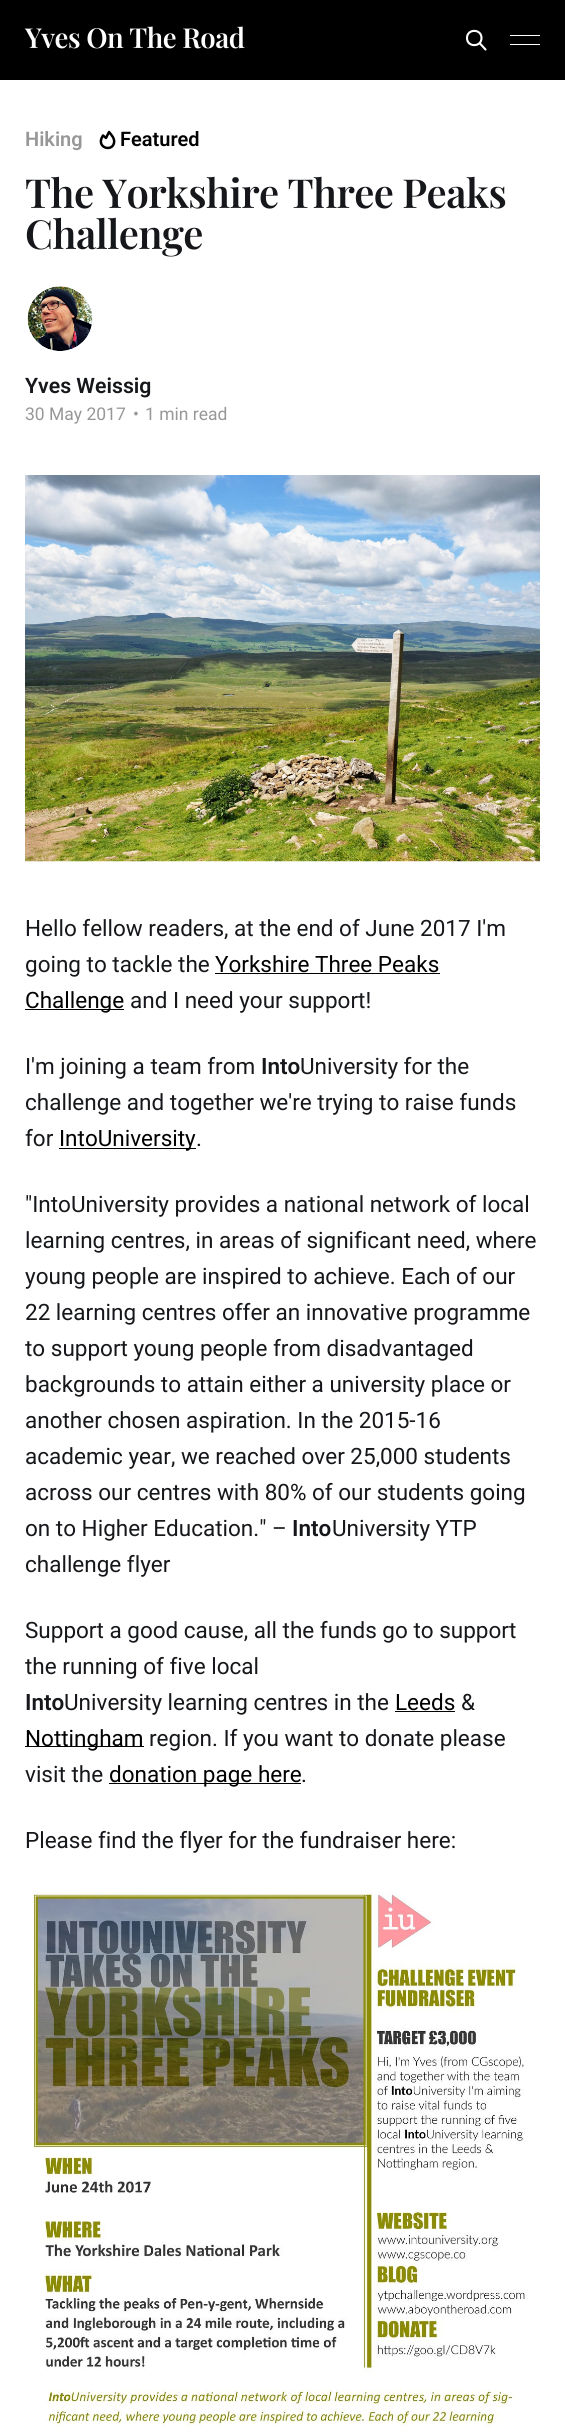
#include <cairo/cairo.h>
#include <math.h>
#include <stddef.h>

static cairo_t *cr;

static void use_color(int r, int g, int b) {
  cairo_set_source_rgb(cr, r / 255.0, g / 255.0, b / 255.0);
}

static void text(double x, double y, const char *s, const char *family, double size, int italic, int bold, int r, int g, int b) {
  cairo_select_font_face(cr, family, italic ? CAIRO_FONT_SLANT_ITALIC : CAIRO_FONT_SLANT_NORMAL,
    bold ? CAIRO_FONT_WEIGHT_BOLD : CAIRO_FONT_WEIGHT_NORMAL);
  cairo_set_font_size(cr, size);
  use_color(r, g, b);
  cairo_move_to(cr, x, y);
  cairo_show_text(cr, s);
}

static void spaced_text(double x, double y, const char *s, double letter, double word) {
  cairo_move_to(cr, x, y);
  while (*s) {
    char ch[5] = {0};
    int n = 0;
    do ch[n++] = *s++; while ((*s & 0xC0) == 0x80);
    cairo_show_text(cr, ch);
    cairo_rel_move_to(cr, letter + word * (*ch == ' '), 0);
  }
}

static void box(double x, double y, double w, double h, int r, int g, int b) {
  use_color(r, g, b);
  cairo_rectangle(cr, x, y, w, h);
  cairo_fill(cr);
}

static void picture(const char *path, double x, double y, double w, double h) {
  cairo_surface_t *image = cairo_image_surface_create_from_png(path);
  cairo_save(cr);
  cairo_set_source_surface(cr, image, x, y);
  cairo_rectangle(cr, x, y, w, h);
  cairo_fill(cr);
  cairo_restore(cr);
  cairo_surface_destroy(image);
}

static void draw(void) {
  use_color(255, 255, 255);
  cairo_paint(cr);
  box(0, 0, 565, 80, 0, 0, 0);
  cairo_new_path(cr);
  cairo_move_to(cr, 485.5, 49.5);
  cairo_line_to(cr, 479.5, 43);
  cairo_move_to(cr, 481.5, 38);
  cairo_curve_to(cr, 481.5, 47.5, 467, 47.5, 467, 38);
  cairo_curve_to(cr, 467, 28.5, 481.5, 28.5, 481.5, 38);
  cairo_close_path(cr);
  use_color(255, 255, 255);
  cairo_set_line_width(cr, 2.1);
  cairo_set_line_cap(cr, CAIRO_LINE_CAP_ROUND);
  cairo_set_line_join(cr, CAIRO_LINE_JOIN_ROUND);
  cairo_stroke(cr);
  box(510, 35, 30, 1, 255, 255, 255);
  box(510, 44, 30, 1, 255, 255, 255);
  cairo_new_path(cr);
  cairo_move_to(cr, 103, 135.5);
  cairo_curve_to(cr, 95, 147.5, 112, 152.5, 114, 143);
  cairo_curve_to(cr, 115, 138.5, 111.5, 135, 109, 132);
  cairo_line_to(cr, 106, 138);
  cairo_close_path(cr);
  use_color(0, 0, 0);
  cairo_set_line_width(cr, 2.5);
  cairo_stroke(cr);
  picture("img_01.png", 27, 286, 66, 65);
  picture("img_02.png", 25, 475, 515, 387);
  box(215, 973, 225, 1, 0, 0, 0);
  box(25, 1009, 99, 1, 0, 0, 0);
  box(59, 1148, 137, 1, 0, 0, 0);
  box(395, 1711, 60, 1, 0, 0, 0);
  box(25, 1746, 119, 1, 0, 0, 0);
  box(109, 1783, 192, 1, 0, 0, 0);
  picture("img_03.png", 33, 1891, 493, 537);
  cairo_select_font_face(cr, "Playfair Display SemiBold", CAIRO_FONT_SLANT_NORMAL, CAIRO_FONT_WEIGHT_NORMAL);
  cairo_set_font_size(cr, 27.5);
  use_color(255, 255, 255);
  spaced_text(25, 48, "Yves On The Road", -0.5, 0);
  text(25, 146, "Hiking", "Roboto SemiBold", 20, 0, 0, 151, 151, 151);
  text(120, 146, "Featured", "Roboto SemiBold", 20, 0, 0, 0, 0, 0);
  cairo_select_font_face(cr, "Playfair Display SemiBold", CAIRO_FONT_SLANT_NORMAL, CAIRO_FONT_WEIGHT_NORMAL);
  cairo_set_font_size(cr, 40);
  use_color(21, 23, 26);
  spaced_text(25, 208, "The Yorkshire Three Peaks", -0.6, 0);
  spaced_text(25, 249, "Challenge", -0.6, 0);
  text(25, 393, "Yves Weissig", "Roboto SemiBold", 21.25, 0, 0, 21, 23, 26);
  text(25, 420, "30 May 2017", "Roboto", 17.5, 0, 0, 151, 151, 151);
  text(133, 420, "•", "Roboto", 17.5, 0, 0, 151, 151, 151);
  text(145, 420, "1 min read", "Roboto", 17.5, 0, 0, 151, 151, 151);
  text(25, 936, "Hello fellow readers, at the end of June 2017 I'm", "Roboto", 22.5, 0, 0, 21, 23, 26);
  text(25, 972, "going to tackle the", "Roboto", 22.5, 0, 0, 21, 23, 26);
  text(215, 972, "Yorkshire Three Peaks", "Roboto", 22.5, 0, 0, 0, 0, 0);
  text(25, 1008, "Challenge", "Roboto", 22.5, 0, 0, 0, 0, 0);
  text(130, 1008, "and I need your support!", "Roboto", 22.5, 0, 0, 21, 23, 26);
  text(25, 1074, "I'm joining a team from", "Roboto", 22.5, 0, 0, 21, 23, 26);
  text(261, 1074, "Into", "Roboto SemiBold", 22.5, 0, 0, 21, 23, 26);
  text(300, 1074, "University for the", "Roboto", 22.5, 0, 0, 21, 23, 26);
  text(25, 1110, "challenge and together we're trying to raise funds", "Roboto", 22.5, 0, 0, 21, 23, 26);
  text(25, 1146, "for", "Roboto", 22.5, 0, 0, 21, 23, 26);
  text(59, 1146, "IntoUniversity", "Roboto", 22.5, 0, 0, 0, 0, 0);
  text(196, 1146, ".", "Roboto", 22.5, 0, 0, 21, 23, 26);
  text(25, 1212, "\"IntoUniversity provides a national network of local", "Roboto", 22.5, 0, 0, 21, 23, 26);
  text(25, 1248, "learning centres, in areas of significant need, where", "Roboto", 22.5, 0, 0, 21, 23, 26);
  text(25, 1284, "young people are inspired to achieve. Each of our", "Roboto", 22.5, 0, 0, 21, 23, 26);
  text(25, 1320, "22 learning centres offer an innovative programme", "Roboto", 22.5, 0, 0, 21, 23, 26);
  text(25, 1356, "to support young people from disadvantaged", "Roboto", 22.5, 0, 0, 21, 23, 26);
  text(25, 1392, "backgrounds to attain either a university place or", "Roboto", 22.5, 0, 0, 21, 23, 26);
  text(25, 1428, "another chosen aspiration. In the 2015-16", "Roboto", 22.5, 0, 0, 21, 23, 26);
  text(25, 1464, "academic year, we reached over 25,000 students", "Roboto", 22.5, 0, 0, 21, 23, 26);
  text(25, 1500, "across our centres with 80% of our students going", "Roboto", 22.5, 0, 0, 21, 23, 26);
  text(25, 1536, "on to Higher Education.\" –", "Roboto", 22.5, 0, 0, 21, 23, 26);
  text(292, 1536, "Into", "Roboto SemiBold", 22.5, 0, 0, 21, 23, 26);
  text(332, 1536, "University YTP", "Roboto", 22.5, 0, 0, 21, 23, 26);
  text(25, 1572, "challenge flyer", "Roboto", 22.5, 0, 0, 21, 23, 26);
  text(25, 1638, "Support a good cause, all the funds go to support", "Roboto", 22.5, 0, 0, 21, 23, 26);
  text(25, 1674, "the running of five local", "Roboto", 22.5, 0, 0, 21, 23, 26);
  text(25, 1710, "Into", "Roboto SemiBold", 22.5, 0, 0, 21, 23, 26);
  text(64, 1710, "University learning centres in the", "Roboto", 22.5, 0, 0, 21, 23, 26);
  text(395, 1710, "Leeds", "Roboto", 22.5, 0, 0, 0, 0, 0);
  text(461, 1710, "&", "Roboto", 22.5, 0, 0, 21, 23, 26);
  text(25, 1746, "Nottingham", "Roboto", 22.5, 0, 0, 0, 0, 0);
  text(149, 1746, "region. If you want to donate please", "Roboto", 22.5, 0, 0, 21, 23, 26);
  text(25, 1782, "visit the", "Roboto", 22.5, 0, 0, 21, 23, 26);
  text(109, 1782, "donation page here", "Roboto", 22.5, 0, 0, 0, 0, 0);
  text(301, 1782, ".", "Roboto", 22.5, 0, 0, 21, 23, 26);
  text(25, 1848, "Please find the flyer for the fundraiser here:", "Roboto", 22.5, 0, 0, 21, 23, 26);
}

int main(void) {
  cairo_surface_t *surface = cairo_image_surface_create(CAIRO_FORMAT_RGB24, 565, 2428);
  cr = cairo_create(surface);
  cairo_font_options_t *options = cairo_font_options_create();
  cairo_font_options_set_hint_metrics(options, CAIRO_HINT_METRICS_OFF);
  cairo_font_options_set_hint_style(options, CAIRO_HINT_STYLE_NONE);
  cairo_set_font_options(cr, options);
  cairo_set_miter_limit(cr, 4);
  draw();
  cairo_surface_write_to_png(surface, "out.png");
  cairo_font_options_destroy(options);
  cairo_destroy(cr);
  cairo_surface_destroy(surface);
  return 0;
}
